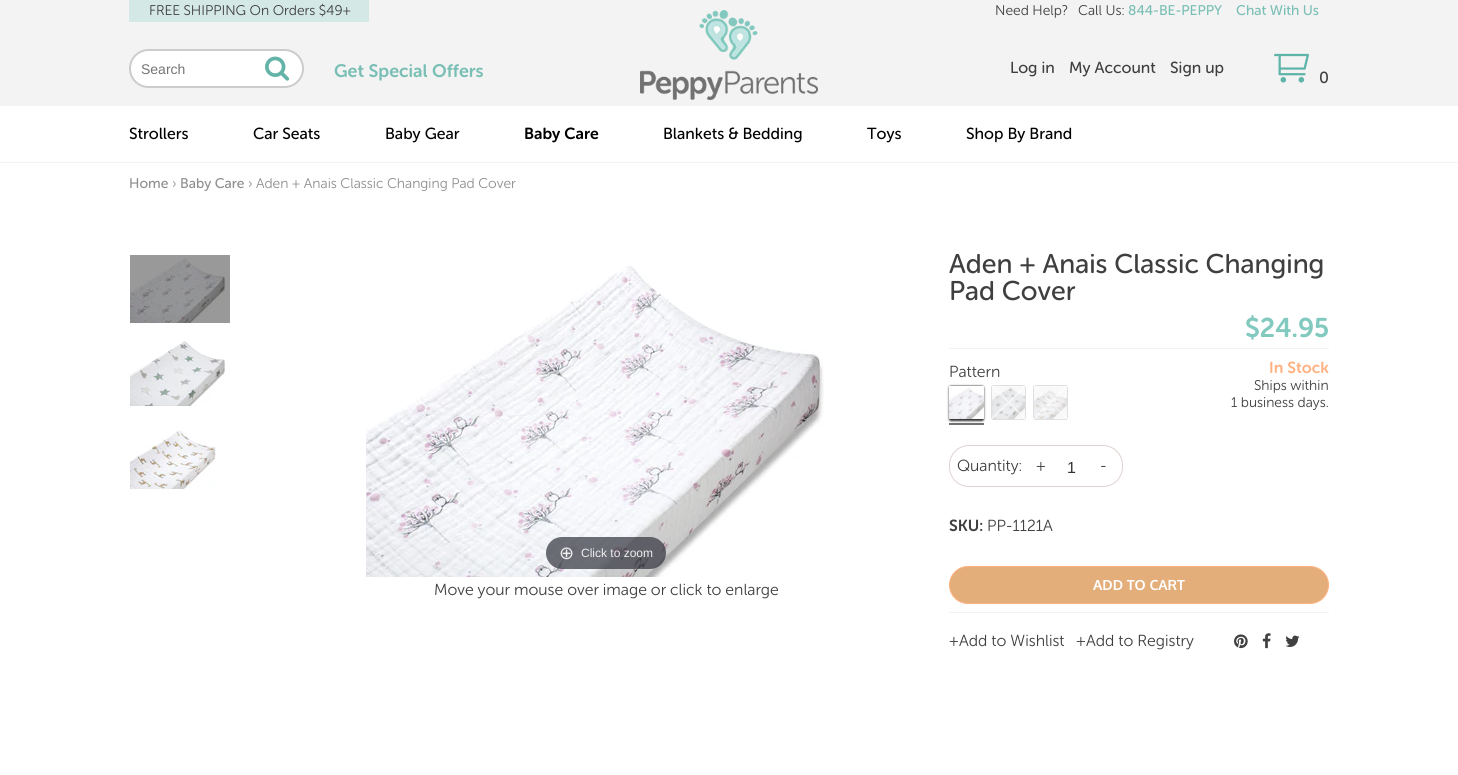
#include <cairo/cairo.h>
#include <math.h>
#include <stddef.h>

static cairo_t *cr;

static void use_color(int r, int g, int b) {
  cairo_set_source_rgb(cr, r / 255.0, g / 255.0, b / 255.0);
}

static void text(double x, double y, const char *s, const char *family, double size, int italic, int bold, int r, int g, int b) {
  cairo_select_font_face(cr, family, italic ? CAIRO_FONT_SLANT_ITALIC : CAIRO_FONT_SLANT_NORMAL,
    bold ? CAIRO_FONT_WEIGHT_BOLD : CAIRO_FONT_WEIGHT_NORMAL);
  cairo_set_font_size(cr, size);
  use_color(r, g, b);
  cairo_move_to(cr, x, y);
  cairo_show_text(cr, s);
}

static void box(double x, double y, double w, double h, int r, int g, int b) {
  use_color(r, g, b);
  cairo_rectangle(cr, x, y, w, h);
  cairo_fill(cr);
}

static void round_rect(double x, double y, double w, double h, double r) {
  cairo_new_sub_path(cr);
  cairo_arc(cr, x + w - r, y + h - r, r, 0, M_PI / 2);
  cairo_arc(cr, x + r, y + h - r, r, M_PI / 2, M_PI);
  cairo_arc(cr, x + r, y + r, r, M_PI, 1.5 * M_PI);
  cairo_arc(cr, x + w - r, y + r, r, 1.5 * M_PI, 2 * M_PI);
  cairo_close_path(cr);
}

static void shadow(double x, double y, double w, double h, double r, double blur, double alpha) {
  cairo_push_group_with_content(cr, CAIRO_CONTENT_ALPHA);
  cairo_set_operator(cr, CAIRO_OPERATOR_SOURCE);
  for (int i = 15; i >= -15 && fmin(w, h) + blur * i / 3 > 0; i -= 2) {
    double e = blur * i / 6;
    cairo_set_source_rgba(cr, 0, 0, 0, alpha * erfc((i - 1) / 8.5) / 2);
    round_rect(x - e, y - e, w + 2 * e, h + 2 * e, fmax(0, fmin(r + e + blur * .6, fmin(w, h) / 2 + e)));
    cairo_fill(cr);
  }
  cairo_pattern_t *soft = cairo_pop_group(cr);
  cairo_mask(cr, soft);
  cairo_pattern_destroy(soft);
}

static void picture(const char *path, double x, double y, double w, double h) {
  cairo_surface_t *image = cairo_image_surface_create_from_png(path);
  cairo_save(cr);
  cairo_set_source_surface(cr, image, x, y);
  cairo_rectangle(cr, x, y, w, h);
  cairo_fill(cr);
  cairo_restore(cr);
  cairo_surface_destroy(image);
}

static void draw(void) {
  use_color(255, 255, 255);
  cairo_paint(cr);
  box(0, 0, 1458, 106, 243, 243, 243);
  box(129, 0, 240, 22, 212, 232, 230);
  use_color(255, 255, 255);
  round_rect(130, 50, 173, 37, 18.5);
  cairo_fill_preserve(cr);
  use_color(204, 204, 204);
  cairo_stroke(cr);
  picture("img_01.png", 265, 56, 25, 25);
  picture("img_02.png", 640, 10, 178, 90);
  picture("img_03.png", 1274, 53, 35, 30);
  box(0, 162, 1458, 1, 243, 243, 243);
  picture("img_04.png", 130, 255, 100, 68);
  picture("img_05.png", 130, 341, 96, 65);
  picture("img_06.png", 130, 430, 86, 59);
  picture("img_07.png", 366, 265, 458, 312);
  cairo_set_source_rgba(cr, 0.192, 0.2, 0.239, 0.7);
  round_rect(546, 537, 120, 32, 16);
  cairo_fill(cr);
  box(949, 348, 380, 1, 243, 243, 243);
  use_color(0, 0, 0);
  shadow(949, 386, 35, 35, 2, 1, 0.8);
  cairo_set_source_rgba(cr, 0, 0, 0, 0.09);
  round_rect(949, 385, 35, 35, 2);
  cairo_fill(cr);
  picture("img_08.png", 949, 386, 35, 33);
  box(949, 423, 35, 2, 114, 114, 114);
  use_color(241, 241, 241);
  round_rect(991, 385, 35, 35, 2);
  cairo_fill(cr);
  picture("img_09.png", 991, 386, 35, 33);
  round_rect(991.5, 385.5, 34, 34, 1.5);
  use_color(224, 224, 224);
  cairo_set_line_width(cr, 1);
  cairo_stroke(cr);
  picture("img_10.png", 991, 385, 35, 35);
  use_color(241, 241, 241);
  round_rect(1033, 385, 35, 35, 2);
  cairo_fill(cr);
  picture("img_11.png", 1033, 386, 35, 33);
  round_rect(1033.5, 385.5, 34, 34, 1.5);
  use_color(224, 224, 224);
  cairo_stroke(cr);
  picture("img_12.png", 1033, 385, 35, 35);
  round_rect(949.5, 445.5, 173, 41, 19.5);
  use_color(224, 209, 209);
  cairo_stroke(cr);
  use_color(228, 174, 123);
  round_rect(949.5, 566.5, 379, 37, 18.5);
  cairo_fill_preserve(cr);
  use_color(255, 178, 129);
  cairo_stroke(cr);
  box(949, 612, 380, 1, 243, 243, 243);
  picture("img_13.png", 1234, 634, 14, 15);
  picture("img_14.png", 1262, 633, 9, 16);
  picture("img_15.png", 1285, 635, 15, 12);
  text(149, 15, "FREE SHIPPING On Orders $49+", "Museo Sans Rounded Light", 14, 0, 0, 63, 63, 63);
  text(141, 74, "Search", "Liberation Sans", 14, 0, 0, 117, 117, 117);
  text(334, 77, "Get Special Offers", "Museo Sans Rounded SemiBold", 18, 0, 0, 122, 191, 181);
  text(995, 15, "Need Help?", "Museo Sans Rounded Light", 14, 0, 0, 63, 63, 63);
  text(1078, 15, "Call Us:", "Museo Sans Rounded Light", 14, 0, 0, 63, 63, 63);
  text(1128, 15, "844-BE-PEPPY", "Museo Sans Rounded", 14, 0, 0, 122, 191, 181);
  text(1236, 15, "Chat With Us", "Museo Sans Rounded", 14, 0, 0, 122, 191, 181);
  text(1010, 73, "Log in", "Museo Sans Rounded", 16, 0, 0, 63, 63, 63);
  text(1069, 73, "My Account", "Museo Sans Rounded", 16, 0, 0, 63, 63, 63);
  text(1170, 73, "Sign up", "Museo Sans Rounded", 16, 0, 0, 63, 63, 63);
  text(1319, 83, "0", "Museo Sans Rounded", 16, 0, 0, 63, 63, 63);
  text(129, 139, "Strollers", "Museo Sans Rounded", 16, 0, 0, 0, 0, 0);
  text(253, 139, "Car Seats", "Museo Sans Rounded", 16, 0, 0, 0, 0, 0);
  text(385, 139, "Baby Gear", "Museo Sans Rounded", 16, 0, 0, 0, 0, 0);
  text(524, 139, "Baby Care", "Museo Sans Rounded SemiBold", 16, 0, 0, 0, 0, 0);
  text(663, 139, "Blankets & Bedding", "Museo Sans Rounded", 16, 0, 0, 0, 0, 0);
  text(867, 139, "Toys", "Museo Sans Rounded", 16, 0, 0, 0, 0, 0);
  text(966, 139, "Shop By Brand", "Museo Sans Rounded", 16, 0, 0, 0, 0, 0);
  text(129, 188, "Home", "Museo Sans Rounded", 14, 0, 0, 142, 142, 142);
  text(172, 188, "›", "Museo Sans Rounded Light", 14, 0, 0, 142, 142, 142);
  text(180, 188, "Baby Care", "Museo Sans Rounded", 14, 0, 0, 142, 142, 142);
  text(248, 188, "› Aden + Anais Classic Changing Pad Cover", "Museo Sans Rounded Light", 14, 0, 0, 142, 142, 142);
  text(559, 559, "⊕", "DejaVu Sans", 18, 0, 0, 238, 238, 238);
  text(581, 557, "Click to zoom", "Liberation Sans", 12, 0, 0, 238, 238, 238);
  text(434, 595, "Move your mouse over image or click to enlarge", "Museo Sans Rounded Light", 16, 0, 0, 63, 63, 63);
  text(949, 273, "Aden + Anais Classic Changing", "Museo Sans Rounded", 27, 0, 0, 63, 63, 63);
  text(949, 300, "Pad Cover", "Museo Sans Rounded", 27, 0, 0, 63, 63, 63);
  text(1245, 337, "$24.95", "Museo Sans Rounded SemiBold", 27, 0, 0, 130, 201, 191);
  text(949, 377, "Pattern", "Museo Sans Rounded Light", 16, 0, 0, 63, 63, 63);
  text(1269, 373, "In Stock", "Museo Sans Rounded SemiBold", 16, 0, 0, 255, 178, 129);
  text(1254, 390, "Ships within", "Museo Sans Rounded Light", 14, 0, 0, 63, 63, 63);
  text(1231, 407, "1 business days.", "Museo Sans Rounded Light", 14, 0, 0, 63, 63, 63);
  text(957, 471, "Quantity:", "Museo Sans Rounded Light", 16, 0, 0, 63, 63, 63);
  text(1036, 471, "+", "Museo Sans Rounded Light", 16, 0, 0, 63, 63, 63);
  text(1067, 473, "1", "Liberation Sans", 16, 0, 0, 51, 51, 51);
  text(1100, 471, "-", "Museo Sans Rounded Light", 16, 0, 0, 63, 63, 63);
  text(949, 531, "SKU:", "Museo Sans Rounded SemiBold", 16, 0, 0, 63, 63, 63);
  text(987, 531, "PP-1121A", "Museo Sans Rounded Light", 16, 0, 0, 63, 63, 63);
  text(1093, 590, "ADD TO CART", "Oxygen", 14, 0, 1, 255, 255, 255);
  text(949, 646, "+", "Museo Sans Rounded Light", 16, 0, 0, 63, 63, 63);
  text(959, 646, "Add to Wishlist", "Museo Sans Rounded Light", 16, 0, 0, 63, 63, 63);
  text(1076, 646, "+", "Museo Sans Rounded Light", 16, 0, 0, 63, 63, 63);
  text(1086, 646, "Add to Registry", "Museo Sans Rounded Light", 16, 0, 0, 63, 63, 63);
}

int main(void) {
  cairo_surface_t *surface = cairo_image_surface_create(CAIRO_FORMAT_RGB24, 1458, 775);
  cr = cairo_create(surface);
  cairo_font_options_t *options = cairo_font_options_create();
  cairo_font_options_set_hint_metrics(options, CAIRO_HINT_METRICS_OFF);
  cairo_font_options_set_hint_style(options, CAIRO_HINT_STYLE_NONE);
  cairo_set_font_options(cr, options);
  cairo_set_miter_limit(cr, 4);
  draw();
  cairo_surface_write_to_png(surface, "out.png");
  cairo_font_options_destroy(options);
  cairo_destroy(cr);
  cairo_surface_destroy(surface);
  return 0;
}
